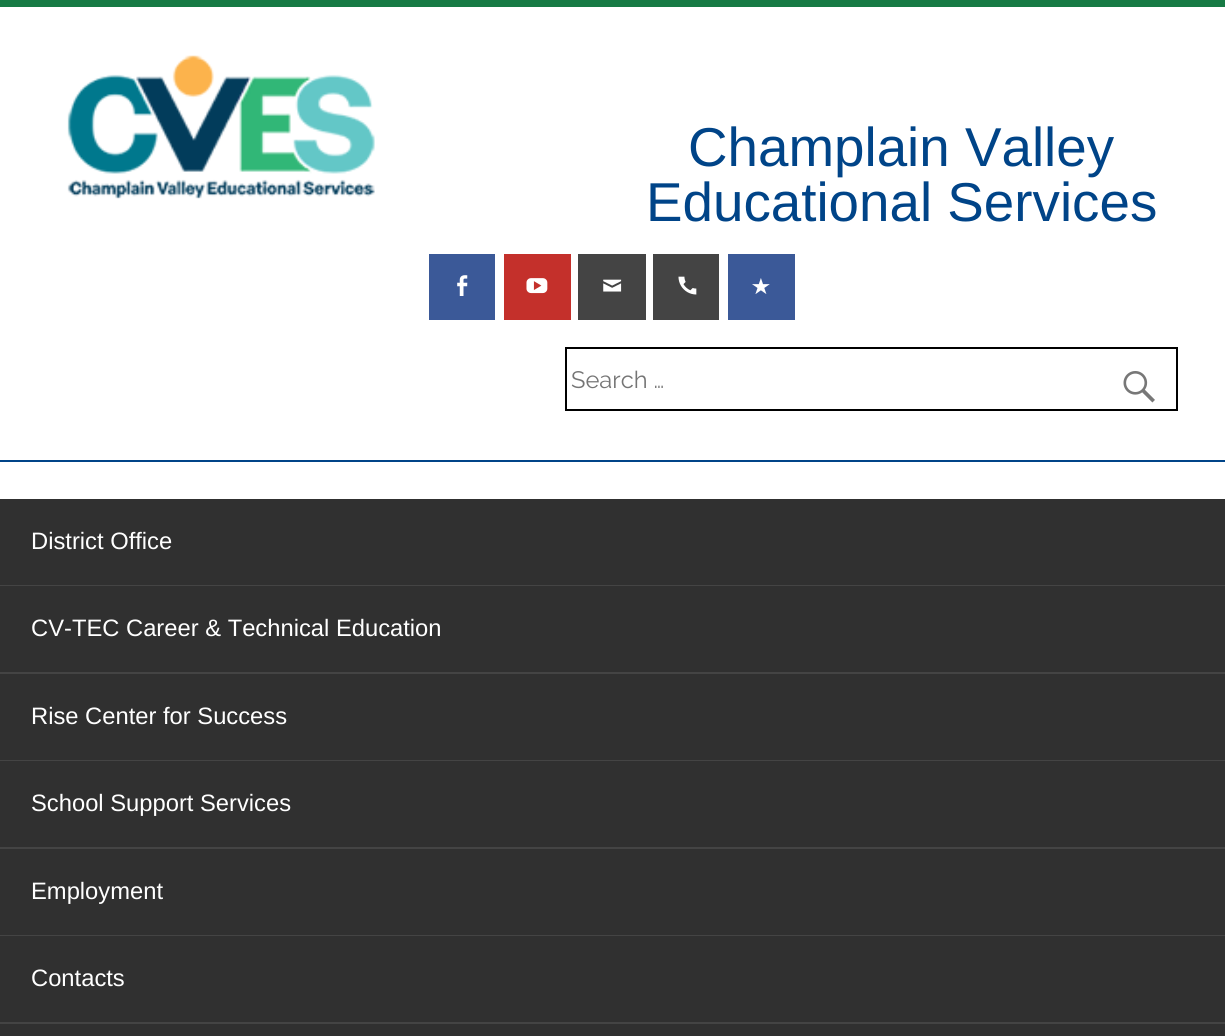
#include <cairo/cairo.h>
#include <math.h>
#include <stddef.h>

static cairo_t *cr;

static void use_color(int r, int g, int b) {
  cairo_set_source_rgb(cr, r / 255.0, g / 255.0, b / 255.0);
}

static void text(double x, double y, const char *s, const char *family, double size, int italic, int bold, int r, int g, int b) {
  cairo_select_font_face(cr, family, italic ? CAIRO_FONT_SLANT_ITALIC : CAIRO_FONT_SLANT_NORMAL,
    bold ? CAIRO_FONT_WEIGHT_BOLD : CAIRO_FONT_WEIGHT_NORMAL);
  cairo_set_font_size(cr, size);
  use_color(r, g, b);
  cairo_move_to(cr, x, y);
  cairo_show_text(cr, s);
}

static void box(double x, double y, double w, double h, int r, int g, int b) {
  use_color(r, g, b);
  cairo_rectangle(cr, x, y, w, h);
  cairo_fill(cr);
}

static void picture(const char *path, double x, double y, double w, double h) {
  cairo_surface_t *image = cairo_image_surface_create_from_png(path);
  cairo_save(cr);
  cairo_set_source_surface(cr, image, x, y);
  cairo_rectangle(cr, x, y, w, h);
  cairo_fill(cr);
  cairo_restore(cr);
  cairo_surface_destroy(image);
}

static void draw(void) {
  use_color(255, 255, 255);
  cairo_paint(cr);
  box(0, 0, 1225, 7, 23, 122, 68);
  picture("img_01.png", 67, 55, 308, 144);
  box(429, 254, 66, 66, 59, 89, 152);
  picture("img_02.png", 457, 275, 11, 21);
  box(504, 254, 67, 66, 196, 48, 43);
  picture("img_03.png", 526, 278, 22, 16);
  box(578, 254, 68, 66, 68, 68, 68);
  picture("img_04.png", 603, 279, 19, 13);
  box(653, 254, 66, 66, 68, 68, 68);
  picture("img_05.png", 678, 276, 19, 19);
  box(728, 254, 67, 66, 59, 89, 152);
  picture("img_06.png", 752, 278, 18, 16);
  cairo_rectangle(cr, 566, 348, 611, 62);
  use_color(0, 0, 0);
  cairo_stroke(cr);
  picture("img_07.png", 1123, 371, 32, 32);
  box(0, 460, 1225, 2, 0, 68, 136);
  box(0, 499, 1225, 86, 48, 48, 48);
  box(0, 585, 1225, 1, 68, 68, 68);
  box(0, 586, 1225, 86, 48, 48, 48);
  box(0, 672, 1225, 2, 68, 68, 68);
  box(0, 674, 1225, 86, 48, 48, 48);
  box(0, 760, 1225, 1, 68, 68, 68);
  box(0, 761, 1225, 86, 48, 48, 48);
  box(0, 847, 1225, 2, 68, 68, 68);
  box(0, 849, 1225, 86, 48, 48, 48);
  box(0, 935, 1225, 1, 68, 68, 68);
  box(0, 936, 1225, 86, 48, 48, 48);
  box(0, 1022, 1225, 2, 68, 68, 68);
  box(0, 1024, 1225, 12, 48, 48, 48);
  text(688, 166, "Champlain Valley", "Liberation Sans", 54.75, 0, 0, 0, 68, 136);
  text(646, 221, "Educational Services", "Liberation Sans", 54.75, 0, 0, 0, 68, 136);
  text(571, 388, "Search …", "Raleway", 23.75, 0, 0, 117, 117, 117);
  text(31, 549, "District Office", "Liberation Sans", 23.75, 0, 0, 255, 255, 255);
  text(31, 636, "CV-TEC Career & Technical Education", "Liberation Sans", 23.75, 0, 0, 255, 255, 255);
  text(31, 724, "Rise Center for Success", "Liberation Sans", 23.75, 0, 0, 255, 255, 255);
  text(31, 811, "School Support Services", "Liberation Sans", 23.75, 0, 0, 255, 255, 255);
  text(31, 899, "Employment", "Liberation Sans", 23.75, 0, 0, 255, 255, 255);
  text(31, 986, "Contacts", "Liberation Sans", 23.75, 0, 0, 255, 255, 255);
}

int main(void) {
  cairo_surface_t *surface = cairo_image_surface_create(CAIRO_FORMAT_RGB24, 1225, 1036);
  cr = cairo_create(surface);
  cairo_font_options_t *options = cairo_font_options_create();
  cairo_font_options_set_hint_metrics(options, CAIRO_HINT_METRICS_OFF);
  cairo_font_options_set_hint_style(options, CAIRO_HINT_STYLE_NONE);
  cairo_set_font_options(cr, options);
  cairo_set_miter_limit(cr, 4);
  draw();
  cairo_surface_write_to_png(surface, "out.png");
  cairo_font_options_destroy(options);
  cairo_destroy(cr);
  cairo_surface_destroy(surface);
  return 0;
}
